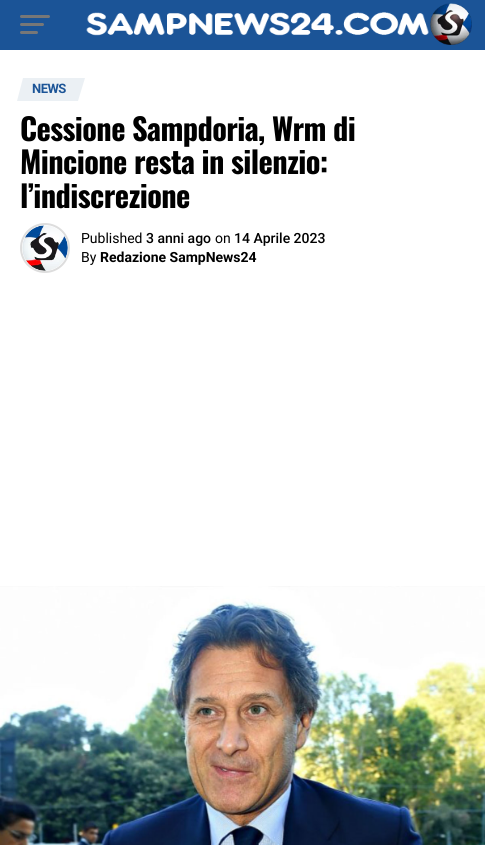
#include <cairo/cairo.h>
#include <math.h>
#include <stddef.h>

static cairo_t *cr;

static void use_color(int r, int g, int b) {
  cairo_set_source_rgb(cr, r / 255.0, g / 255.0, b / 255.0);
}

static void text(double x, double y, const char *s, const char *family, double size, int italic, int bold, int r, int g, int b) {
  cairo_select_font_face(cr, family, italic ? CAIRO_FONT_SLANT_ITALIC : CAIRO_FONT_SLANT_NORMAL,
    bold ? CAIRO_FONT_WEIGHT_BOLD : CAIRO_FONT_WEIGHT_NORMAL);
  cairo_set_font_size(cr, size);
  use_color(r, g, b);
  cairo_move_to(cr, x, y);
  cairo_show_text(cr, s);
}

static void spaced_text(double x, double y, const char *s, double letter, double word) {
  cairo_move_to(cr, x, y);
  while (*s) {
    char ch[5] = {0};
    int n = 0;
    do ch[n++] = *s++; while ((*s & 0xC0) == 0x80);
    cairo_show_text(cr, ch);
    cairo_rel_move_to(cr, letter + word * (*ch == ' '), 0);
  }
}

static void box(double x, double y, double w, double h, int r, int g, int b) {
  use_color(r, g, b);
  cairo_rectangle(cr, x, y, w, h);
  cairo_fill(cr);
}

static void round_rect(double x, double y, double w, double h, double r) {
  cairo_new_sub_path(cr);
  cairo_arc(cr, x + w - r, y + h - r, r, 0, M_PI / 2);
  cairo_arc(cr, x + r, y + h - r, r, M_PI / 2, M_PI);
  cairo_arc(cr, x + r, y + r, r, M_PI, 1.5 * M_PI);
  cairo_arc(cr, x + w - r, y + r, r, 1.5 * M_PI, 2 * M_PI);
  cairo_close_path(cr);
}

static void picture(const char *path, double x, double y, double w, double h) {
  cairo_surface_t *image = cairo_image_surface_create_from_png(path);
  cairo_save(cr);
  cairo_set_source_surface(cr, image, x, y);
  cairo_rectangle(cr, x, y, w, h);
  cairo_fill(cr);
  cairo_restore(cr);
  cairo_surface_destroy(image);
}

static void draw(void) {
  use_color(255, 255, 255);
  cairo_paint(cr);
  box(0, 0, 485, 50, 27, 84, 151);
  use_color(119, 119, 119);
  round_rect(20, 15, 30, 3, 1.5);
  cairo_fill(cr);
  round_rect(20, 23, 24, 3, 1.5);
  cairo_fill(cr);
  round_rect(20, 31, 18, 3, 1.5);
  cairo_fill(cr);
  picture("img_01.png", 86, 12, 343, 24);
  picture("img_02.png", 430, 3, 42, 42);
  use_color(235, 240, 244);
  cairo_new_path(cr);
  cairo_move_to(cr, 23, 78);
  cairo_line_to(cr, 85, 78);
  cairo_line_to(cr, 78, 101);
  cairo_line_to(cr, 17, 101);
  cairo_close_path(cr);
  cairo_fill(cr);
  cairo_arc(cr, 45, 248, 24, 0, 2 * M_PI);
  use_color(221, 221, 221);
  cairo_stroke(cr);
  picture("img_03.png", 22, 225, 46, 46);
  picture("img_04.png", 0, 586, 485, 259);
  cairo_select_font_face(cr, "Roboto", CAIRO_FONT_SLANT_NORMAL, CAIRO_FONT_WEIGHT_BOLD);
  cairo_set_font_size(cr, 13);
  use_color(27, 84, 151);
  spaced_text(32, 93, "NEWS", -0.5, 0);
  cairo_select_font_face(cr, "Oswald", CAIRO_FONT_SLANT_NORMAL, CAIRO_FONT_WEIGHT_BOLD);
  cairo_set_font_size(cr, 30.4);
  use_color(0, 0, 0);
  spaced_text(20, 141, "Cessione Sampdoria, Wrm di", -0.6, 0);
  spaced_text(20, 174, "Mincione resta in silenzio:", -0.6, 0);
  spaced_text(20, 208, "l’indiscrezione", -0.6, 0);
  text(81, 243, "Published", "Roboto", 14, 0, 0, 0, 0, 0);
  text(146, 243, "3 anni ago", "Roboto Medium", 14, 0, 0, 0, 0, 0);
  text(215, 243, "on", "Roboto", 14, 0, 0, 0, 0, 0);
  text(234, 243, "14 Aprile 2023", "Roboto Medium", 14, 0, 0, 0, 0, 0);
  text(81, 262, "By", "Roboto", 14, 0, 0, 0, 0, 0);
  text(100, 262, "Redazione SampNews24", "Roboto", 14, 0, 1, 0, 0, 0);
}

int main(void) {
  cairo_surface_t *surface = cairo_image_surface_create(CAIRO_FORMAT_RGB24, 485, 845);
  cr = cairo_create(surface);
  cairo_font_options_t *options = cairo_font_options_create();
  cairo_font_options_set_hint_metrics(options, CAIRO_HINT_METRICS_OFF);
  cairo_font_options_set_hint_style(options, CAIRO_HINT_STYLE_NONE);
  cairo_set_font_options(cr, options);
  cairo_set_miter_limit(cr, 4);
  draw();
  cairo_surface_write_to_png(surface, "out.png");
  cairo_font_options_destroy(options);
  cairo_destroy(cr);
  cairo_surface_destroy(surface);
  return 0;
}
